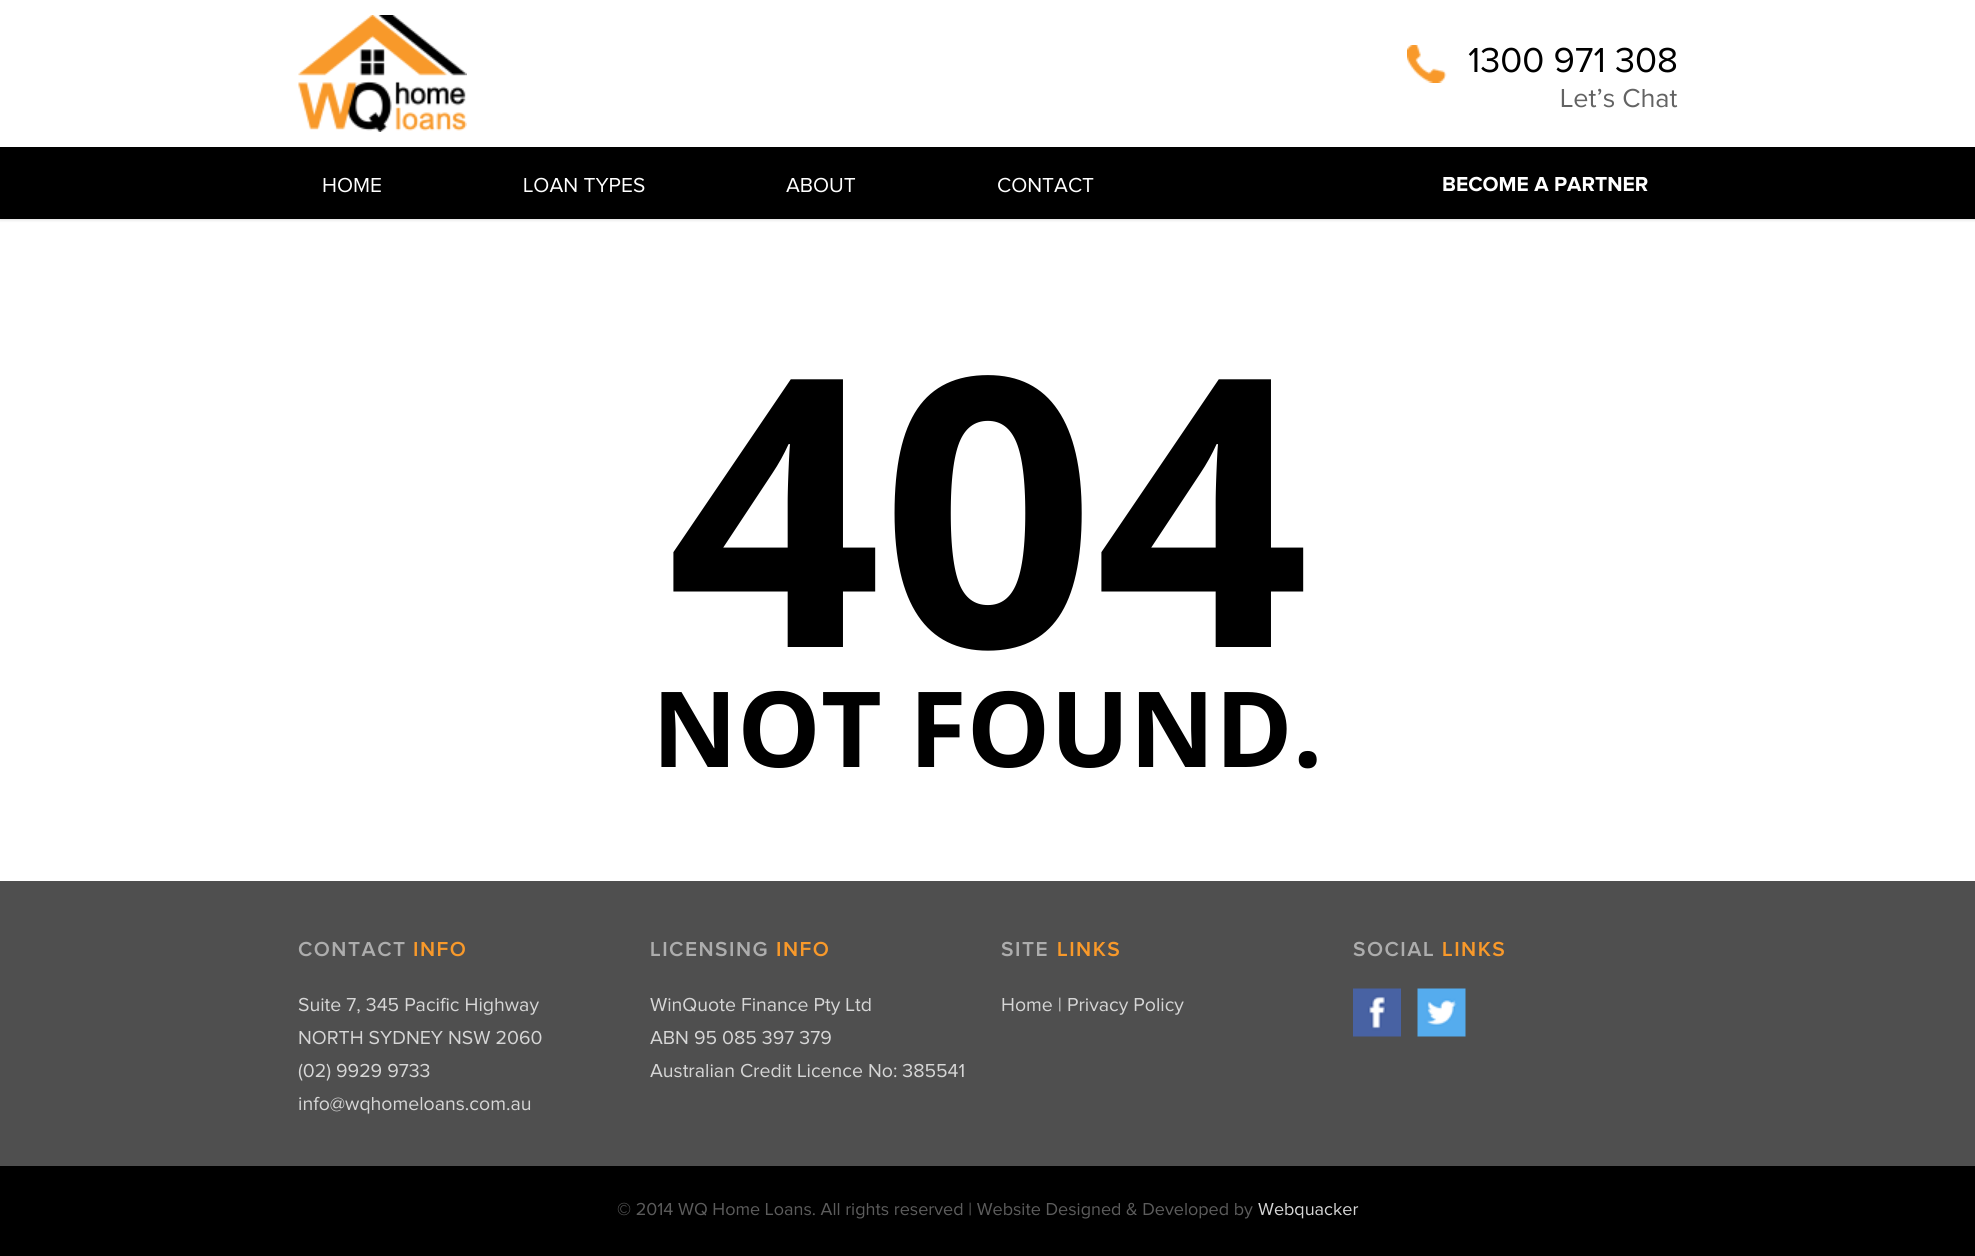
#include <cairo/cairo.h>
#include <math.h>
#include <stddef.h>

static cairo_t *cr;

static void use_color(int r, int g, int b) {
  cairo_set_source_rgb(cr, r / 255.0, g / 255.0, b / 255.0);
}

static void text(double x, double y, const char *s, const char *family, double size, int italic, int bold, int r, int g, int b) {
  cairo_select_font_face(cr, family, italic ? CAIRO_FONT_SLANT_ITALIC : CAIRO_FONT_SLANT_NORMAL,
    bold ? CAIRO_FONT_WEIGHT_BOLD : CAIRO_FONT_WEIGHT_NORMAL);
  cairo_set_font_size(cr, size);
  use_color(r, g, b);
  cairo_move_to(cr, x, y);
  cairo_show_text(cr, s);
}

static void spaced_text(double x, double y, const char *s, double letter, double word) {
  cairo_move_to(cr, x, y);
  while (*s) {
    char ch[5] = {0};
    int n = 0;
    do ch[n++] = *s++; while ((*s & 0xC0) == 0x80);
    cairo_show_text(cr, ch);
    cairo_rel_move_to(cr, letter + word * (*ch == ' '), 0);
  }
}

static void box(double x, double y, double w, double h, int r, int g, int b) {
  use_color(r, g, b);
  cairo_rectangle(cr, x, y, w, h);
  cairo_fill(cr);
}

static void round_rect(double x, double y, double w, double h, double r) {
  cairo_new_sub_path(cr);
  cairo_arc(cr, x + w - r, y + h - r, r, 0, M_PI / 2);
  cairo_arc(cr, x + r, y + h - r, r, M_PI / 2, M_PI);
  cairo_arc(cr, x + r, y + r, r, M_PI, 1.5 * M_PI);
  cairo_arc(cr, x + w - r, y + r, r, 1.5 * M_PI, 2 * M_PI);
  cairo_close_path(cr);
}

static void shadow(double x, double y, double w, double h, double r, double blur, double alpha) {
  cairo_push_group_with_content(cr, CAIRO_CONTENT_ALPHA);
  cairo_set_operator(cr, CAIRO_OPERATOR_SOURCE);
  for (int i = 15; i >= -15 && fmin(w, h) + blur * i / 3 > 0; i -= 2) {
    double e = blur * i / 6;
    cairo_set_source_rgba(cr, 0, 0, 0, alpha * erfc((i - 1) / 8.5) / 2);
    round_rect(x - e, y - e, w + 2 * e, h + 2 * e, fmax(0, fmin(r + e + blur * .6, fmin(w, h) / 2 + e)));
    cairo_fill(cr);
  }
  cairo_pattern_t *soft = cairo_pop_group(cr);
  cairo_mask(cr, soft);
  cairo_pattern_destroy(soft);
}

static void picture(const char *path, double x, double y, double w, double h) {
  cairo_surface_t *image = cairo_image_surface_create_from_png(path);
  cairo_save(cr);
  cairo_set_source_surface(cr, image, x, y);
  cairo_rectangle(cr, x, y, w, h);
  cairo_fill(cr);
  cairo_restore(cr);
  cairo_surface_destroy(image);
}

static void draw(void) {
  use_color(0, 0, 0);
  cairo_paint(cr);
  box(0, 219, 1975, 662, 255, 255, 255);
  use_color(0, 0, 0);
  shadow(0, 0, 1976, 219, 0, 2, 0.22);
  box(0, 0, 1975, 147, 255, 255, 255);
  picture("img_01.png", 298, 15, 169, 117);
  picture("img_02.png", 1407, 45, 40, 38);
  box(0, 881, 1975, 285, 79, 79, 79);
  picture("img_03.png", 1353, 988, 48, 49);
  picture("img_04.png", 1417, 988, 49, 49);
  text(1468, 72, "1300 971 308", "Proxima Nova", 36, 0, 0, 0, 0, 0);
  text(1560, 107, "Let’s Chat", "Proxima Nova", 27, 0, 0, 99, 99, 99);
  text(322, 192, "HOME", "Proxima Nova", 21, 0, 0, 255, 255, 255);
  text(523, 192, "LOAN TYPES", "Proxima Nova", 21, 0, 0, 255, 255, 255);
  text(786, 192, "ABOUT", "Proxima Nova", 21, 0, 0, 255, 255, 255);
  text(997, 192, "CONTACT", "Proxima Nova", 21, 0, 0, 255, 255, 255);
  text(1442, 191, "BECOME A PARTNER", "Proxima Nova", 21, 0, 1, 255, 255, 255);
  text(667, 647, "404", "Open Sans", 375, 0, 1, 0, 0, 0);
  text(652, 767, "NOT FOUND.", "Open Sans", 105, 0, 1, 0, 0, 0);
  cairo_select_font_face(cr, "Proxima Nova SemiBold", CAIRO_FONT_SLANT_NORMAL, CAIRO_FONT_WEIGHT_NORMAL);
  cairo_set_font_size(cr, 21);
  use_color(173, 173, 173);
  spaced_text(298, 956, "CONTACT", 1.5, 0);
  use_color(248, 153, 42);
  spaced_text(413, 956, "INFO", 1.5, 0);
  text(298, 1011, "Suite 7, 345 Pacific Highway", "Proxima Nova", 19.5, 0, 0, 214, 214, 214);
  text(298, 1044, "NORTH SYDNEY NSW 2060", "Proxima Nova", 19.5, 0, 0, 214, 214, 214);
  text(298, 1077, "(02) 9929 9733", "Proxima Nova", 19.5, 0, 0, 214, 214, 214);
  text(298, 1110, "info@wqhomeloans.com.au", "Proxima Nova", 19.5, 0, 0, 214, 214, 214);
  cairo_select_font_face(cr, "Proxima Nova SemiBold", CAIRO_FONT_SLANT_NORMAL, CAIRO_FONT_WEIGHT_NORMAL);
  cairo_set_font_size(cr, 21);
  use_color(173, 173, 173);
  spaced_text(650, 956, "LICENSING", 1.5, 0);
  use_color(248, 153, 42);
  spaced_text(776, 956, "INFO", 1.5, 0);
  text(650, 1011, "WinQuote Finance Pty Ltd", "Proxima Nova", 19.5, 0, 0, 214, 214, 214);
  text(650, 1044, "ABN 95 085 397 379", "Proxima Nova", 19.5, 0, 0, 214, 214, 214);
  text(650, 1077, "Australian Credit Licence No: 385541", "Proxima Nova", 19.5, 0, 0, 214, 214, 214);
  cairo_select_font_face(cr, "Proxima Nova SemiBold", CAIRO_FONT_SLANT_NORMAL, CAIRO_FONT_WEIGHT_NORMAL);
  cairo_set_font_size(cr, 21);
  use_color(173, 173, 173);
  spaced_text(1001, 956, "SITE", 1.5, 0);
  use_color(248, 153, 42);
  spaced_text(1057, 956, "LINKS", 1.5, 0);
  text(1001, 1011, "Home | Privacy Policy", "Proxima Nova", 19.5, 0, 0, 214, 214, 214);
  cairo_select_font_face(cr, "Proxima Nova SemiBold", CAIRO_FONT_SLANT_NORMAL, CAIRO_FONT_WEIGHT_NORMAL);
  cairo_set_font_size(cr, 21);
  use_color(173, 173, 173);
  spaced_text(1353, 956, "SOCIAL", 1.5, 0);
  use_color(248, 153, 42);
  spaced_text(1442, 956, "LINKS", 1.5, 0);
  text(617, 1215, "© 2014 WQ Home Loans. All rights reserved | Website Designed & Developed by", "Proxima Nova", 18, 0, 0, 92, 92, 92);
  text(1258, 1215, "Webquacker", "Proxima Nova", 18, 0, 0, 214, 214, 214);
}

int main(void) {
  cairo_surface_t *surface = cairo_image_surface_create(CAIRO_FORMAT_RGB24, 1975, 1256);
  cr = cairo_create(surface);
  cairo_font_options_t *options = cairo_font_options_create();
  cairo_font_options_set_hint_metrics(options, CAIRO_HINT_METRICS_OFF);
  cairo_font_options_set_hint_style(options, CAIRO_HINT_STYLE_NONE);
  cairo_set_font_options(cr, options);
  cairo_set_miter_limit(cr, 4);
  draw();
  cairo_surface_write_to_png(surface, "out.png");
  cairo_font_options_destroy(options);
  cairo_destroy(cr);
  cairo_surface_destroy(surface);
  return 0;
}
